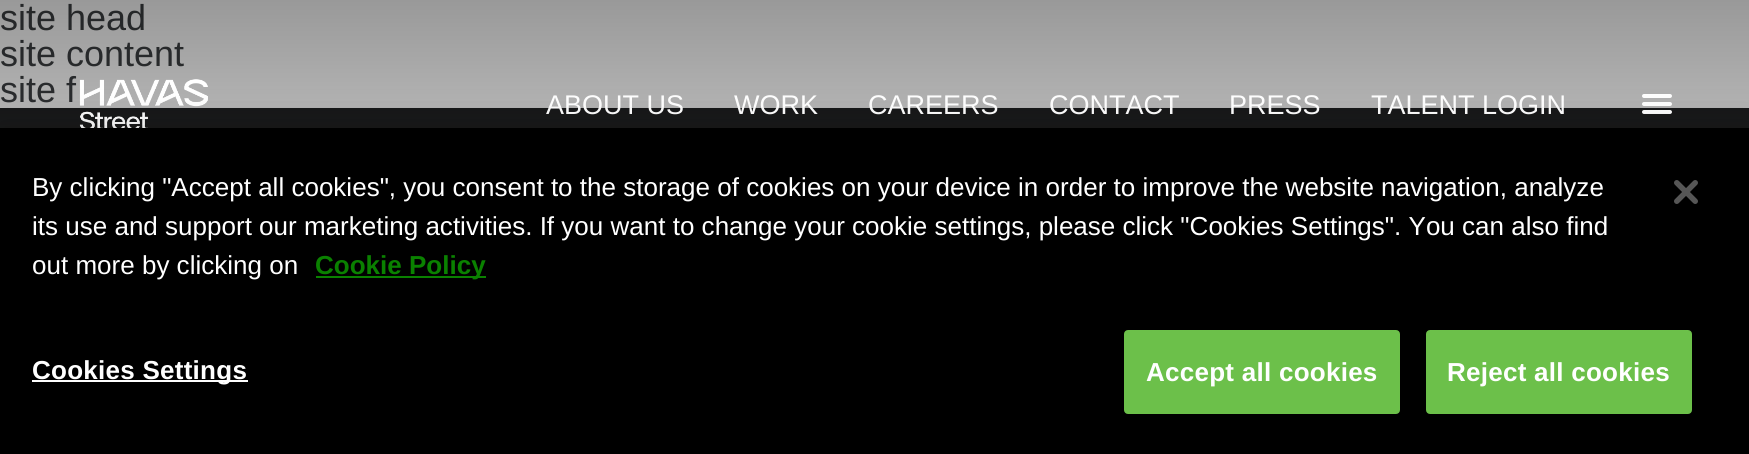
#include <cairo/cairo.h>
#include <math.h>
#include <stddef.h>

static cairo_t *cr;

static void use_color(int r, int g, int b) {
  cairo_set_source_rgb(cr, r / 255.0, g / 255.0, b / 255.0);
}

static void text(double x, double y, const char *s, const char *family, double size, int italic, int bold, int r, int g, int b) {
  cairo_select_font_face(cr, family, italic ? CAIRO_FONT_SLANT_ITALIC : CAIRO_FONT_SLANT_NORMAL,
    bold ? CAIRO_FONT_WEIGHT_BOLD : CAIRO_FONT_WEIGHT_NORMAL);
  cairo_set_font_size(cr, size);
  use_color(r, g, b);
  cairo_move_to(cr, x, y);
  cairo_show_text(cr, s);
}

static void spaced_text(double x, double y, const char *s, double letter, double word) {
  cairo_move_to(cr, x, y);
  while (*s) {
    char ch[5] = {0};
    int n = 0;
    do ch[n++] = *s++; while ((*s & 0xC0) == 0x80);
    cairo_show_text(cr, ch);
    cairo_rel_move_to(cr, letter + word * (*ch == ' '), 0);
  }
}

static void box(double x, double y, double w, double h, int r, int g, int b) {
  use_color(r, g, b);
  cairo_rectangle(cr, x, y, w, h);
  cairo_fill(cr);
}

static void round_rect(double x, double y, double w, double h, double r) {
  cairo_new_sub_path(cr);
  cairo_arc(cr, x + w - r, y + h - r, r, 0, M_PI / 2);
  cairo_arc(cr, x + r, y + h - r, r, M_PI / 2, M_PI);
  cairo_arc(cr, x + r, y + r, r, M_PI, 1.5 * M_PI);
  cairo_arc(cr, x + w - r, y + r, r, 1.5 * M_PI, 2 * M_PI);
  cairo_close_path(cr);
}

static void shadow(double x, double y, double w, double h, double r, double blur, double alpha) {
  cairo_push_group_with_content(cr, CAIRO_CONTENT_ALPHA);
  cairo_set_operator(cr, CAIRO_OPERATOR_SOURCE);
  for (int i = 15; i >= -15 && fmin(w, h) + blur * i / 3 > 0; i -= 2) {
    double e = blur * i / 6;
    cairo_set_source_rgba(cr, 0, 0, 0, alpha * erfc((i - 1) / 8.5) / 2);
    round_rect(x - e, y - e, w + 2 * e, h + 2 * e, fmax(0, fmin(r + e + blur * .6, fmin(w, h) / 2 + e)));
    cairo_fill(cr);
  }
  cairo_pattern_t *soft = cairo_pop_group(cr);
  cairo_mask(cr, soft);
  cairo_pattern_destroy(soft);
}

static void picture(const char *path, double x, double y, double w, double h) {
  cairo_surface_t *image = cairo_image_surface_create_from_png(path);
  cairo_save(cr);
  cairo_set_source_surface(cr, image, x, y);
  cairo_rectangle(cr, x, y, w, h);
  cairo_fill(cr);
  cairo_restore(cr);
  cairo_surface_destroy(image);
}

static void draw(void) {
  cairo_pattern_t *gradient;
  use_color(255, 255, 255);
  cairo_paint(cr);
  box(0, 108, 1749, 20, 33, 34, 35);
  text(0, 30, "site head", "Liberation Sans", 36, 0, 0, 60, 63, 66);
  text(0, 66, "site content", "Liberation Sans", 36, 0, 0, 60, 63, 66);
  text(0, 102, "site f", "Liberation Sans", 36, 0, 0, 60, 63, 66);
  gradient = cairo_pattern_create_linear(875, 0, 875, 214);
  cairo_pattern_add_color_stop_rgba(gradient, 0, 0, 0, 0, 0.4);
  cairo_pattern_add_color_stop_rgba(gradient, 0.5, 0, 0, 0, 0.3);
  cairo_pattern_add_color_stop_rgba(gradient, 1, 0, 0, 0, 0);
  cairo_set_source(cr, gradient);
  cairo_pattern_destroy(gradient);
  cairo_rectangle(cr, 0, 0, 1749, 128);
  cairo_fill(cr);
  picture("img_01.png", 79, 79, 129, 49);
  text(546, 114, "ABOUT US", "Liberation Sans", 27, 0, 0, 255, 255, 255);
  text(734, 114, "WORK", "Liberation Sans", 27, 0, 0, 255, 255, 255);
  text(868, 114, "CAREERS", "Liberation Sans", 27, 0, 0, 255, 255, 255);
  text(1049, 114, "CONTACT", "Liberation Sans", 27, 0, 0, 255, 255, 255);
  text(1229, 114, "PRESS", "Liberation Sans", 27, 0, 0, 255, 255, 255);
  text(1371, 114, "TALENT LOGIN", "Liberation Sans", 27, 0, 0, 255, 255, 255);
  round_rect(1642, 102, 30, 4, 2);
  cairo_fill(cr);
  round_rect(1642, 94, 30, 4, 2);
  cairo_fill(cr);
  round_rect(1642, 110, 30, 4, 2);
  cairo_fill(cr);
  use_color(0, 0, 0);
  shadow(0, 128, 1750, 326, 0, 18, 0.2);
  box(0, 128, 1749, 326, 0, 0, 0);
  text(32, 196, "By clicking \"Accept all cookies\", you consent to the storage of cookies on your device in order to improve the website navigation, analyze", "Liberation Sans", 26.02, 0, 0, 255, 255, 255);
  text(32, 235, "its use and support our marketing activities. If you want to change your cookie settings, please click \"Cookies Settings\". You can also find", "Liberation Sans", 26.02, 0, 0, 255, 255, 255);
  text(32, 274, "out more by clicking on", "Liberation Sans", 26.02, 0, 0, 255, 255, 255);
  box(316, 276, 170, 2, 10, 129, 0);
  text(315, 274, "Cookie Policy", "Liberation Sans", 26.02, 0, 1, 10, 129, 0);
  box(32, 380, 216, 2, 255, 255, 255);
  spaced_text(32, 379, "Cookies Settings", 0.25, 0);
  use_color(108, 192, 74);
  round_rect(1125, 331, 274, 82, 3);
  cairo_fill_preserve(cr);
  cairo_stroke(cr);
  use_color(255, 255, 255);
  spaced_text(1146, 381, "Accept all cookies", 0.25, 0);
  use_color(108, 192, 74);
  round_rect(1427, 331, 264, 82, 3);
  cairo_fill_preserve(cr);
  cairo_stroke(cr);
  use_color(255, 255, 255);
  spaced_text(1447, 381, "Reject all cookies", 0.25, 0);
  picture("img_02.png", 1674, 180, 24, 24);
}

int main(void) {
  cairo_surface_t *surface = cairo_image_surface_create(CAIRO_FORMAT_RGB24, 1749, 454);
  cr = cairo_create(surface);
  cairo_font_options_t *options = cairo_font_options_create();
  cairo_font_options_set_hint_metrics(options, CAIRO_HINT_METRICS_OFF);
  cairo_font_options_set_hint_style(options, CAIRO_HINT_STYLE_NONE);
  cairo_set_font_options(cr, options);
  cairo_set_miter_limit(cr, 4);
  draw();
  cairo_surface_write_to_png(surface, "out.png");
  cairo_font_options_destroy(options);
  cairo_destroy(cr);
  cairo_surface_destroy(surface);
  return 0;
}
